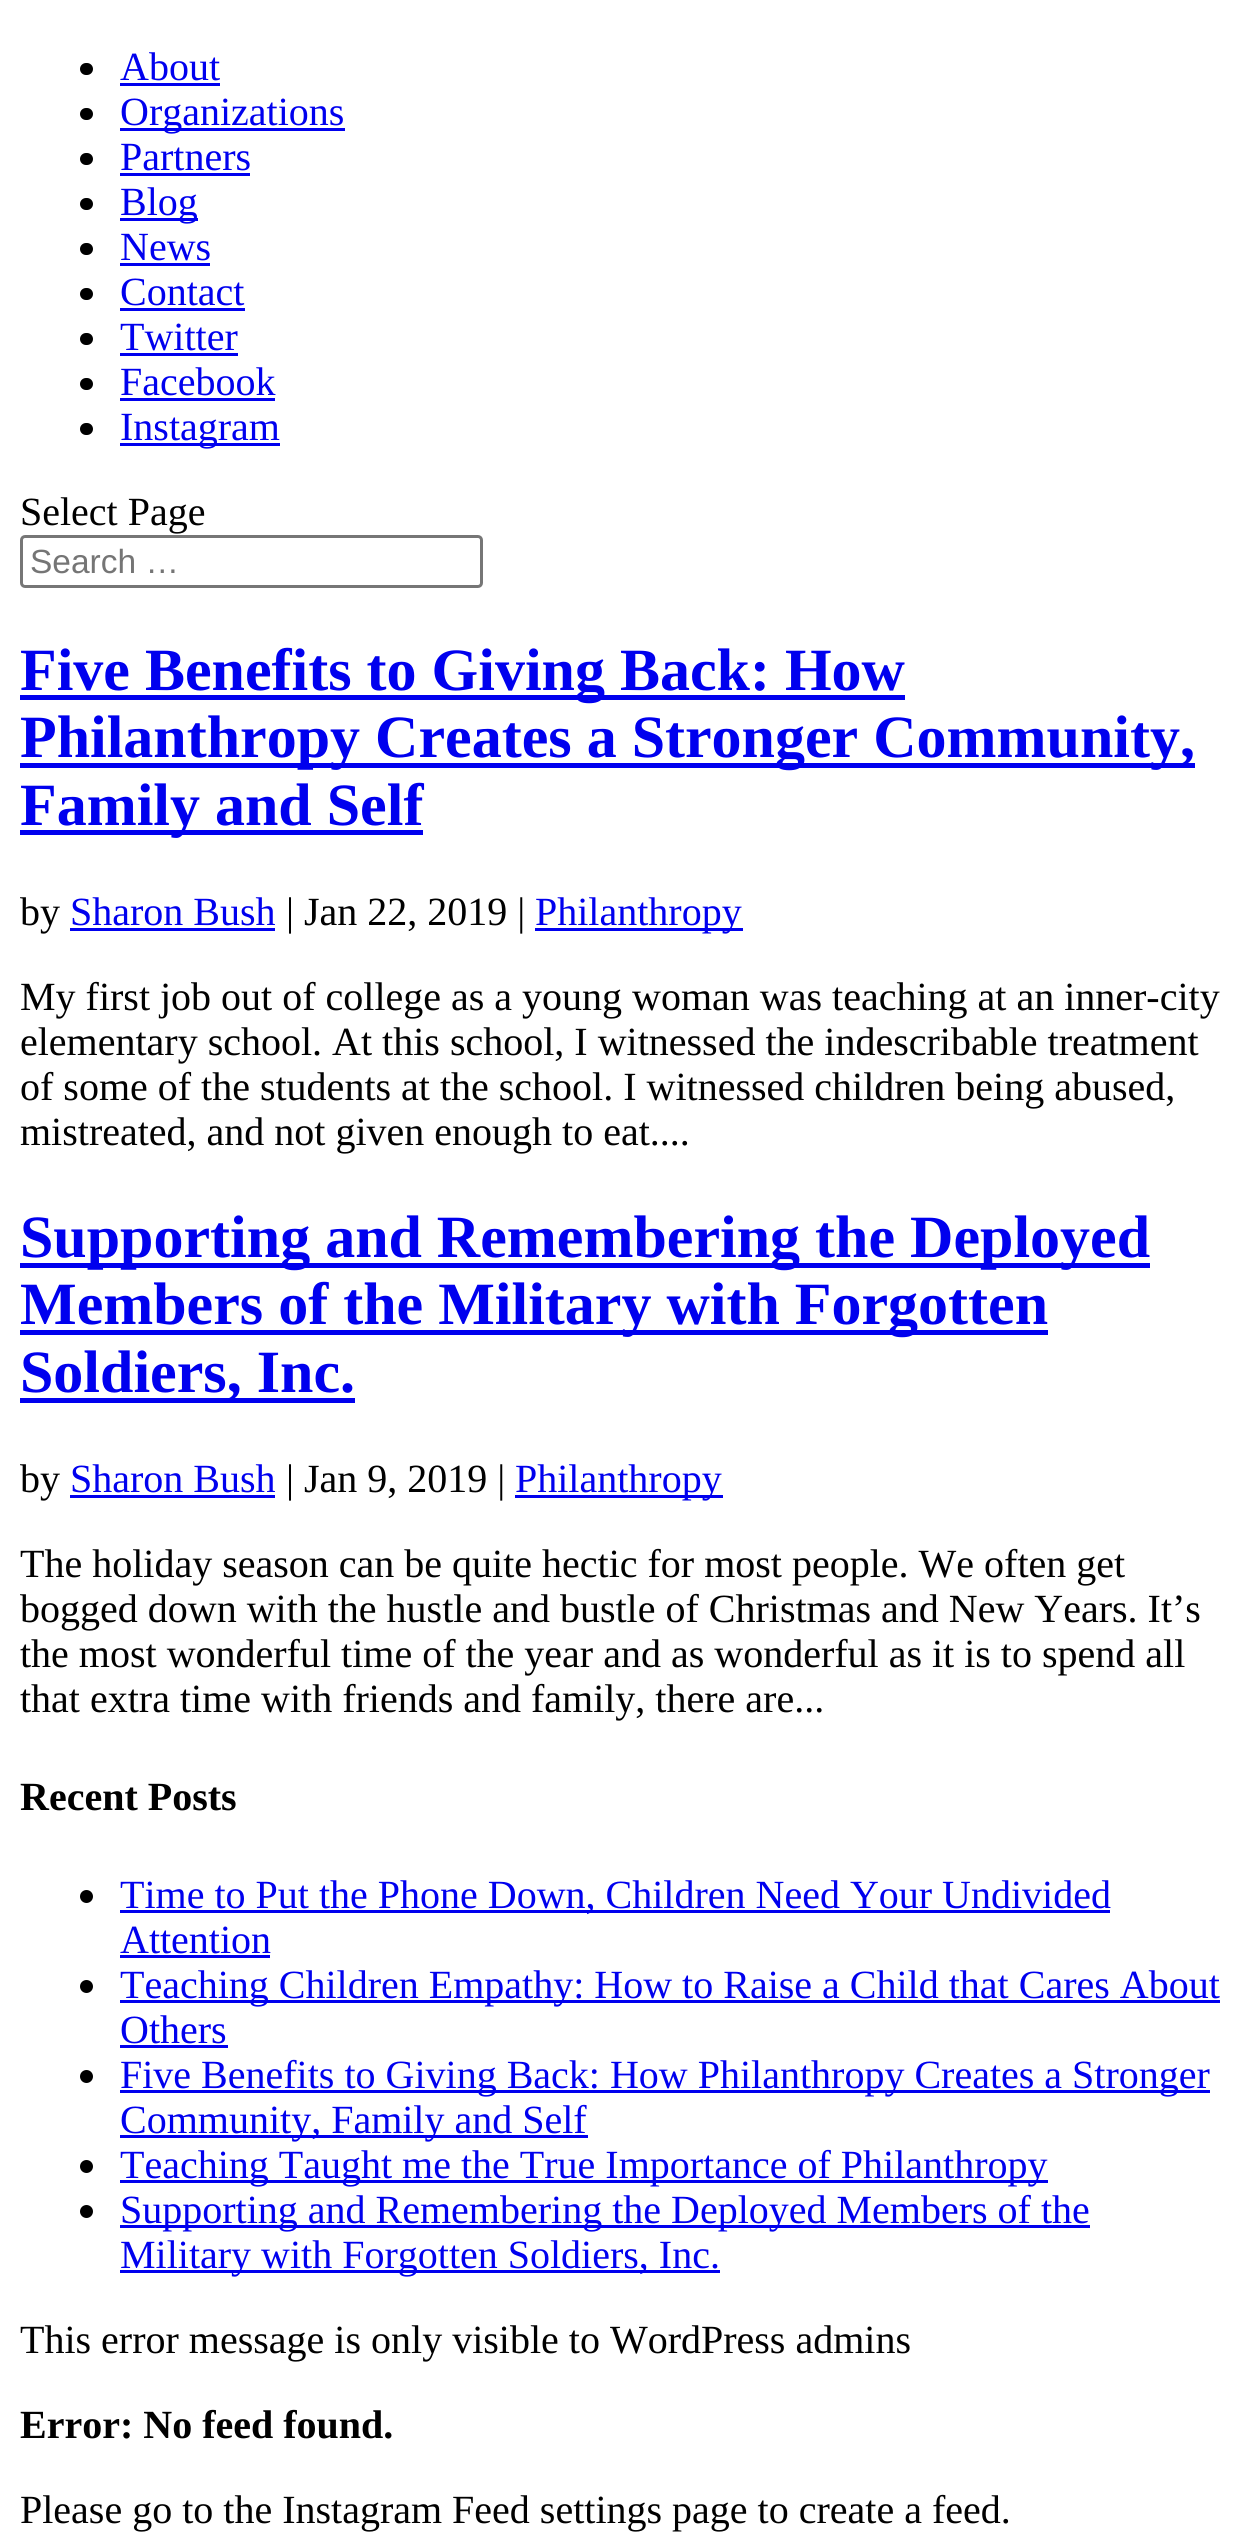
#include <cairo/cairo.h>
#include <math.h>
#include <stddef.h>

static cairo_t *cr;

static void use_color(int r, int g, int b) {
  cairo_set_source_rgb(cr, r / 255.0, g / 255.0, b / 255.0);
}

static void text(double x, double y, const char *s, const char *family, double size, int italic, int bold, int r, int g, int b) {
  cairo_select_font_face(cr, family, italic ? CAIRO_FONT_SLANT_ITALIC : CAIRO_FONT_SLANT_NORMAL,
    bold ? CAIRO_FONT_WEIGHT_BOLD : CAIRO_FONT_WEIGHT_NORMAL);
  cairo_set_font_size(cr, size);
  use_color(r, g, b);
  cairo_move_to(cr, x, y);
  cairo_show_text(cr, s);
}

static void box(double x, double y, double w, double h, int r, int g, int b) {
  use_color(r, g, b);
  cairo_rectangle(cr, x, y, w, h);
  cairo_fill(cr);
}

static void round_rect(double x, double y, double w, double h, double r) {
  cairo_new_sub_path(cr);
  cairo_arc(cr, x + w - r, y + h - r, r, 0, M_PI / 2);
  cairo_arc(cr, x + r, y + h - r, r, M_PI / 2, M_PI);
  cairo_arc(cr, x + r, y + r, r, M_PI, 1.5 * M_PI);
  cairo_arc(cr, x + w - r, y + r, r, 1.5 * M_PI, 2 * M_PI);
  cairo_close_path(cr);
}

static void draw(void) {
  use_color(255, 255, 255);
  cairo_paint(cr);
  use_color(0, 0, 0);
  round_rect(80, 63, 13, 12, 6);
  cairo_fill(cr);
  box(120, 83, 100, 3, 0, 0, 238);
  use_color(0, 0, 0);
  round_rect(80, 108, 13, 12, 6);
  cairo_fill(cr);
  box(120, 128, 225, 3, 0, 0, 238);
  use_color(0, 0, 0);
  round_rect(80, 153, 13, 12, 6);
  cairo_fill(cr);
  box(120, 173, 130, 3, 0, 0, 238);
  use_color(0, 0, 0);
  round_rect(80, 198, 13, 12, 6);
  cairo_fill(cr);
  box(120, 218, 78, 3, 0, 0, 238);
  use_color(0, 0, 0);
  round_rect(80, 243, 13, 12, 6);
  cairo_fill(cr);
  box(120, 263, 90, 3, 0, 0, 238);
  use_color(0, 0, 0);
  round_rect(80, 288, 13, 12, 6);
  cairo_fill(cr);
  box(120, 308, 125, 3, 0, 0, 238);
  use_color(0, 0, 0);
  round_rect(80, 333, 13, 12, 6);
  cairo_fill(cr);
  box(120, 353, 118, 3, 0, 0, 238);
  use_color(0, 0, 0);
  round_rect(80, 378, 13, 12, 6);
  cairo_fill(cr);
  box(120, 398, 155, 3, 0, 0, 238);
  use_color(0, 0, 0);
  round_rect(80, 423, 13, 12, 6);
  cairo_fill(cr);
  box(120, 443, 160, 3, 0, 0, 238);
  round_rect(21.5, 536.5, 460, 50, 3.5);
  use_color(118, 118, 118);
  cairo_set_line_width(cr, 3);
  cairo_stroke(cr);
  box(20, 695, 885, 5, 0, 0, 238);
  box(20, 763, 1175, 5, 0, 0, 238);
  box(20, 830, 403, 5, 0, 0, 238);
  box(70, 928, 205, 3, 0, 0, 238);
  box(535, 928, 208, 3, 0, 0, 238);
  box(20, 1263, 1130, 5, 0, 0, 238);
  box(20, 1330, 1028, 5, 0, 0, 238);
  box(20, 1398, 335, 5, 0, 0, 238);
  box(70, 1495, 205, 3, 0, 0, 238);
  box(515, 1495, 208, 3, 0, 0, 238);
  use_color(0, 0, 0);
  cairo_arc(cr, 86.5, 1896.5, 6.5, 0, 2 * M_PI);
  cairo_fill(cr);
  box(120, 1910, 990, 3, 0, 0, 238);
  box(120, 1955, 150, 3, 0, 0, 238);
  use_color(0, 0, 0);
  cairo_arc(cr, 86.5, 1986.5, 6.5, 0, 2 * M_PI);
  cairo_fill(cr);
  box(120, 2000, 1100, 3, 0, 0, 238);
  box(120, 2045, 108, 3, 0, 0, 238);
  use_color(0, 0, 0);
  cairo_arc(cr, 86.5, 2076.5, 6.5, 0, 2 * M_PI);
  cairo_fill(cr);
  box(120, 2090, 1090, 3, 0, 0, 238);
  box(120, 2135, 468, 3, 0, 0, 238);
  use_color(0, 0, 0);
  cairo_arc(cr, 86.5, 2166.5, 6.5, 0, 2 * M_PI);
  cairo_fill(cr);
  box(120, 2180, 928, 3, 0, 0, 238);
  use_color(0, 0, 0);
  cairo_arc(cr, 86.5, 2211.5, 6.5, 0, 2 * M_PI);
  cairo_fill(cr);
  box(120, 2225, 970, 3, 0, 0, 238);
  box(120, 2270, 600, 3, 0, 0, 238);
  text(120, 80, "About", "Liberation Serif", 40, 0, 0, 0, 0, 238);
  text(120, 125, "Organizations", "Liberation Serif", 40, 0, 0, 0, 0, 238);
  text(120, 170, "Partners", "Liberation Serif", 40, 0, 0, 0, 0, 238);
  text(120, 215, "Blog", "Liberation Serif", 40, 0, 0, 0, 0, 238);
  text(120, 260, "News", "Liberation Serif", 40, 0, 0, 0, 0, 238);
  text(120, 305, "Contact", "Liberation Serif", 40, 0, 0, 0, 0, 238);
  text(120, 350, "Twitter", "Liberation Serif", 40, 0, 0, 0, 0, 238);
  text(120, 395, "Facebook", "Liberation Serif", 40, 0, 0, 0, 0, 238);
  text(120, 440, "Instagram", "Liberation Serif", 40, 0, 0, 0, 0, 238);
  text(20, 525, "Select Page", "Liberation Serif", 40, 0, 0, 0, 0, 0);
  text(30, 573, "Search …", "Liberation Sans", 33.5, 0, 0, 117, 117, 117);
  text(20, 690, "Five Benefits to Giving Back: How", "Liberation Serif", 60, 0, 1, 0, 0, 238);
  text(20, 757, "Philanthropy Creates a Stronger Community,", "Liberation Serif", 60, 0, 1, 0, 0, 238);
  text(20, 825, "Family and Self", "Liberation Serif", 60, 0, 1, 0, 0, 238);
  text(20, 925, "by", "Liberation Serif", 40, 0, 0, 0, 0, 0);
  text(70, 925, "Sharon Bush", "Liberation Serif", 40, 0, 0, 0, 0, 238);
  text(286, 925, "| Jan 22, 2019 |", "Liberation Serif", 40, 0, 0, 0, 0, 0);
  text(535, 925, "Philanthropy", "Liberation Serif", 40, 0, 0, 0, 0, 238);
  text(20, 1010, "My first job out of college as a young woman was teaching at an inner-city", "Liberation Serif", 40, 0, 0, 0, 0, 0);
  text(20, 1055, "elementary school. At this school, I witnessed the indescribable treatment", "Liberation Serif", 40, 0, 0, 0, 0, 0);
  text(20, 1100, "of some of the students at the school. I witnessed children being abused,", "Liberation Serif", 40, 0, 0, 0, 0, 0);
  text(20, 1145, "mistreated, and not given enough to eat....", "Liberation Serif", 40, 0, 0, 0, 0, 0);
  text(20, 1257, "Supporting and Remembering the Deployed", "Liberation Serif", 60, 0, 1, 0, 0, 238);
  text(20, 1324, "Members of the Military with Forgotten", "Liberation Serif", 60, 0, 1, 0, 0, 238);
  text(20, 1392, "Soldiers, Inc.", "Liberation Serif", 60, 0, 1, 0, 0, 238);
  text(20, 1492, "by", "Liberation Serif", 40, 0, 0, 0, 0, 0);
  text(70, 1492, "Sharon Bush", "Liberation Serif", 40, 0, 0, 0, 0, 238);
  text(286, 1492, "| Jan 9, 2019 |", "Liberation Serif", 40, 0, 0, 0, 0, 0);
  text(515, 1492, "Philanthropy", "Liberation Serif", 40, 0, 0, 0, 0, 238);
  text(20, 1577, "The holiday season can be quite hectic for most people. We often get", "Liberation Serif", 40, 0, 0, 0, 0, 0);
  text(20, 1622, "bogged down with the hustle and bustle of Christmas and New Years. It’s", "Liberation Serif", 40, 0, 0, 0, 0, 0);
  text(20, 1667, "the most wonderful time of the year and as wonderful as it is to spend all", "Liberation Serif", 40, 0, 0, 0, 0, 0);
  text(20, 1712, "that extra time with friends and family, there are...", "Liberation Serif", 40, 0, 0, 0, 0, 0);
  text(20, 1810, "Recent Posts", "Liberation Serif", 40, 0, 1, 0, 0, 0);
  text(120, 1908, "Time to Put the Phone Down, Children Need Your Undivided", "Liberation Serif", 40, 0, 0, 0, 0, 238);
  text(120, 1953, "Attention", "Liberation Serif", 40, 0, 0, 0, 0, 238);
  text(120, 1998, "Teaching Children Empathy: How to Raise a Child that Cares About", "Liberation Serif", 40, 0, 0, 0, 0, 238);
  text(120, 2043, "Others", "Liberation Serif", 40, 0, 0, 0, 0, 238);
  text(120, 2088, "Five Benefits to Giving Back: How Philanthropy Creates a Stronger", "Liberation Serif", 40, 0, 0, 0, 0, 238);
  text(120, 2133, "Community, Family and Self", "Liberation Serif", 40, 0, 0, 0, 0, 238);
  text(120, 2178, "Teaching Taught me the True Importance of Philanthropy", "Liberation Serif", 40, 0, 0, 0, 0, 238);
  text(120, 2223, "Supporting and Remembering the Deployed Members of the", "Liberation Serif", 40, 0, 0, 0, 0, 238);
  text(120, 2268, "Military with Forgotten Soldiers, Inc.", "Liberation Serif", 40, 0, 0, 0, 0, 238);
  text(20, 2353, "This error message is only visible to WordPress admins", "Liberation Serif", 40, 0, 0, 0, 0, 0);
  text(20, 2438, "Error: No feed found.", "Liberation Serif", 40, 0, 1, 0, 0, 0);
  text(20, 2523, "Please go to the Instagram Feed settings page to create a feed.", "Liberation Serif", 40, 0, 0, 0, 0, 0);
}

int main(void) {
  cairo_surface_t *surface = cairo_image_surface_create(CAIRO_FORMAT_RGB24, 1246, 2533);
  cr = cairo_create(surface);
  cairo_font_options_t *options = cairo_font_options_create();
  cairo_font_options_set_hint_metrics(options, CAIRO_HINT_METRICS_OFF);
  cairo_font_options_set_hint_style(options, CAIRO_HINT_STYLE_NONE);
  cairo_set_font_options(cr, options);
  cairo_set_miter_limit(cr, 4);
  draw();
  cairo_surface_write_to_png(surface, "out.png");
  cairo_font_options_destroy(options);
  cairo_destroy(cr);
  cairo_surface_destroy(surface);
  return 0;
}
